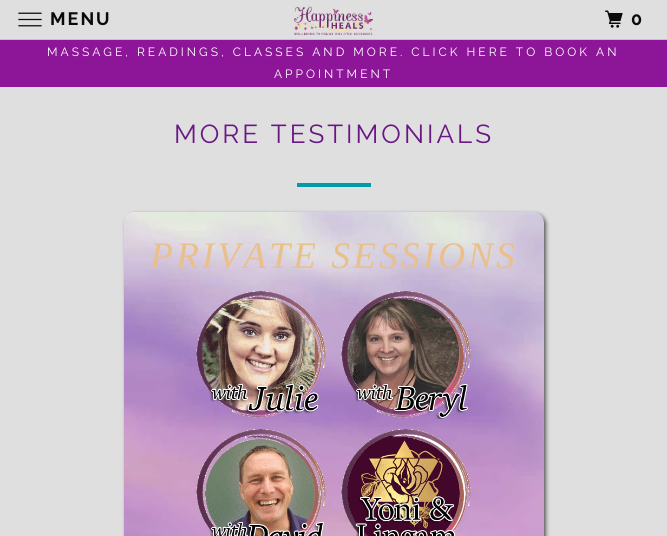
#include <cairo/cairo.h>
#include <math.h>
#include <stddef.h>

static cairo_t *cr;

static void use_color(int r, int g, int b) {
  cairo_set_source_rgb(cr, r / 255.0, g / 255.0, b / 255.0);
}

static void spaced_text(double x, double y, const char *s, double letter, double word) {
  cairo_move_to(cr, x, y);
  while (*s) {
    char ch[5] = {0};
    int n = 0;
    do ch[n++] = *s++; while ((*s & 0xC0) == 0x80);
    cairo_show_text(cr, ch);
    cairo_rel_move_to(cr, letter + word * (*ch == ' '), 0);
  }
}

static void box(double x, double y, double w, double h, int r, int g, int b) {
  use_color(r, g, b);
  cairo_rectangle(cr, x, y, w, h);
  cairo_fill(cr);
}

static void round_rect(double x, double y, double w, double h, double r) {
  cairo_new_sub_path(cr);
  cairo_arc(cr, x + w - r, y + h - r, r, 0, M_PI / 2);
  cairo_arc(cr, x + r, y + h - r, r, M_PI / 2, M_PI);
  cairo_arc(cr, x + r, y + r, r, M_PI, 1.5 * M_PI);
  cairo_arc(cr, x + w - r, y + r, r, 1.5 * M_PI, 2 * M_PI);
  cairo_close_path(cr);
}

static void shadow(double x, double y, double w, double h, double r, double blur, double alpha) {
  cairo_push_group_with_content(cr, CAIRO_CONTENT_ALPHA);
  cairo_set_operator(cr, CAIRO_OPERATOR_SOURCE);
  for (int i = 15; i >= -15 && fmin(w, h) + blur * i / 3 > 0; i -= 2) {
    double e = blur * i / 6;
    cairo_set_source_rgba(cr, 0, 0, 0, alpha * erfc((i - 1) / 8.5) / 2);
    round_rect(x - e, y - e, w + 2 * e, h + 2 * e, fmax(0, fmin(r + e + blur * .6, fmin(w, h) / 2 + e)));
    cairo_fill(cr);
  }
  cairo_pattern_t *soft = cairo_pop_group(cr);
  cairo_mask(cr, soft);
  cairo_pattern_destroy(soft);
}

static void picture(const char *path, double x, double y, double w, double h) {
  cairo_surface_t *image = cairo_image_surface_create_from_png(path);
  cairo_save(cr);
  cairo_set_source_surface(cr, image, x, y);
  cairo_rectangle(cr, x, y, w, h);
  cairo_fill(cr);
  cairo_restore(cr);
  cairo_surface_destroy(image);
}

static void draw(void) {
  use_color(223, 223, 223);
  cairo_paint(cr);
  box(0, 39, 667, 1, 186, 199, 199);
  picture("img_01.png", 18, 12, 24, 15);
  picture("img_02.png", 294, 6, 79, 29);
  picture("img_03.png", 605, 10, 18, 18);
  box(0, 40, 667, 47, 141, 22, 152);
  box(297, 183, 74, 4, 0, 154, 171);
  use_color(0, 0, 0);
  shadow(126, 214, 420, 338, 10, 2, 0.6);
  picture("img_04.png", 124, 212, 420, 324);
  picture("img_05.png", 196, 291, 130, 127);
  picture("img_06.png", 341, 291, 130, 128);
  picture("img_07.png", 196, 429, 130, 107);
  picture("img_08.png", 341, 429, 130, 107);
  cairo_select_font_face(cr, "Raleway", CAIRO_FONT_SLANT_NORMAL, CAIRO_FONT_WEIGHT_BOLD);
  cairo_set_font_size(cr, 18);
  use_color(11, 11, 11);
  spaced_text(50, 25, "MENU", 2, 0);
  spaced_text(631, 25, "0", 2, 0);
  cairo_select_font_face(cr, "Raleway", CAIRO_FONT_SLANT_NORMAL, CAIRO_FONT_WEIGHT_NORMAL);
  cairo_set_font_size(cr, 12);
  use_color(255, 255, 255);
  spaced_text(47, 56, "MASSAGE, READINGS, CLASSES AND MORE. CLICK HERE TO BOOK AN", 3, 0);
  spaced_text(274, 78, "APPOINTMENT", 3, 0);
  cairo_set_font_size(cr, 26);
  use_color(106, 23, 134);
  spaced_text(174, 143, "MORE TESTIMONIALS", 3, 0);
  cairo_select_font_face(cr, "Liberation Serif", CAIRO_FONT_SLANT_ITALIC, CAIRO_FONT_WEIGHT_NORMAL);
  cairo_set_font_size(cr, 37.5);
  use_color(233, 192, 140);
  spaced_text(150, 268, "PRIVATE SESSIONS", 3, 0);
}

int main(void) {
  cairo_surface_t *surface = cairo_image_surface_create(CAIRO_FORMAT_RGB24, 667, 536);
  cr = cairo_create(surface);
  cairo_font_options_t *options = cairo_font_options_create();
  cairo_font_options_set_hint_metrics(options, CAIRO_HINT_METRICS_OFF);
  cairo_font_options_set_hint_style(options, CAIRO_HINT_STYLE_NONE);
  cairo_set_font_options(cr, options);
  cairo_set_miter_limit(cr, 4);
  draw();
  cairo_surface_write_to_png(surface, "out.png");
  cairo_font_options_destroy(options);
  cairo_destroy(cr);
  cairo_surface_destroy(surface);
  return 0;
}
